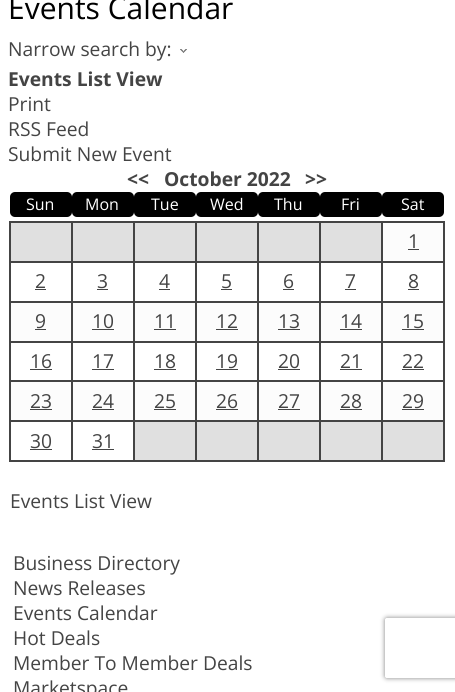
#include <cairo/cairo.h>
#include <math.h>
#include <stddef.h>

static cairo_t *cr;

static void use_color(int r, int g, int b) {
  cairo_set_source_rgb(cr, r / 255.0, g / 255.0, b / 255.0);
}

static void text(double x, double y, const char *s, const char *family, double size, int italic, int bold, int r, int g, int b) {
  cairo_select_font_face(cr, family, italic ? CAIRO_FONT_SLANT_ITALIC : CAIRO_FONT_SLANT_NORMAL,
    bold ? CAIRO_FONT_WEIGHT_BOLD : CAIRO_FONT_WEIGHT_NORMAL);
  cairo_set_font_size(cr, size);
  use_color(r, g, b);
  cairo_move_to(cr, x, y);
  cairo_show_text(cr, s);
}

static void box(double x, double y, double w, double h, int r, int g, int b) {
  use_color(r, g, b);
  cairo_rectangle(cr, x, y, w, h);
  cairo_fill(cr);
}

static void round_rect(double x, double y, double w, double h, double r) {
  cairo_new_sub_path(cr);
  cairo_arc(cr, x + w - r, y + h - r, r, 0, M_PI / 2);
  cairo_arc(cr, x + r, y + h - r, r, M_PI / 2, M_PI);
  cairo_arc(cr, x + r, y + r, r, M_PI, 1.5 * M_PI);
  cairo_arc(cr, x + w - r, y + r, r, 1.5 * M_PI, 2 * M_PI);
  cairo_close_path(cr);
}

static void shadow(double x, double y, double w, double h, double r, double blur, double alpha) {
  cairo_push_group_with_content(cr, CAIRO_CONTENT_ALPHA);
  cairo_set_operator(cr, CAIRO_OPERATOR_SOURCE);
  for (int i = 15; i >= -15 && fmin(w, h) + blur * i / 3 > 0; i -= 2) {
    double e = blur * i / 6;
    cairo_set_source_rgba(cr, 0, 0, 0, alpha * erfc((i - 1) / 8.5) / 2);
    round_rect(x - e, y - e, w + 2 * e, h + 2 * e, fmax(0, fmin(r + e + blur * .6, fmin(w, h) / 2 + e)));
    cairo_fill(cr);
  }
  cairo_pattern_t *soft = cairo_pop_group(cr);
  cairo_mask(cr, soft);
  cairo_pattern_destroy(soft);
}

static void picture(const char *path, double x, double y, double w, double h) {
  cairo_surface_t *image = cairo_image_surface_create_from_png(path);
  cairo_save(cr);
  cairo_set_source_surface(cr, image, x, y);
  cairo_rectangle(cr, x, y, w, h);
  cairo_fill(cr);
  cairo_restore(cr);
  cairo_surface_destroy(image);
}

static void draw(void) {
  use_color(255, 255, 255);
  cairo_paint(cr);
  picture("img_01.png", 180, 49, 7, 4);
  use_color(0, 0, 0);
  round_rect(10, 192, 62, 25, 5);
  cairo_fill(cr);
  round_rect(72, 192, 62, 25, 5);
  cairo_fill(cr);
  round_rect(134, 192, 62, 25, 5);
  cairo_fill(cr);
  round_rect(196, 192, 62, 25, 5);
  cairo_fill(cr);
  round_rect(258, 192, 62, 25, 5);
  cairo_fill(cr);
  round_rect(320, 192, 62, 25, 5);
  cairo_fill(cr);
  round_rect(382, 192, 62, 25, 5);
  cairo_fill(cr);
  use_color(224, 224, 224);
  cairo_rectangle(cr, 10.5, 222.5, 61, 39);
  cairo_fill_preserve(cr);
  use_color(68, 68, 68);
  cairo_set_line_width(cr, 1);
  cairo_stroke(cr);
  box(9, 221, 436, 1, 68, 68, 68);
  box(444, 421, 1, 41, 68, 68, 68);
  box(9, 461, 436, 1, 68, 68, 68);
  box(9, 421, 1, 41, 68, 68, 68);
  box(9, 381, 1, 41, 68, 68, 68);
  box(9, 341, 1, 41, 68, 68, 68);
  box(9, 301, 1, 41, 68, 68, 68);
  box(9, 261, 1, 41, 68, 68, 68);
  box(9, 221, 1, 41, 68, 68, 68);
  use_color(224, 224, 224);
  cairo_rectangle(cr, 72.5, 222.5, 61, 39);
  cairo_fill_preserve(cr);
  use_color(68, 68, 68);
  cairo_stroke(cr);
  use_color(224, 224, 224);
  cairo_rectangle(cr, 134.5, 222.5, 61, 39);
  cairo_fill_preserve(cr);
  use_color(68, 68, 68);
  cairo_stroke(cr);
  use_color(224, 224, 224);
  cairo_rectangle(cr, 196.5, 222.5, 61, 39);
  cairo_fill_preserve(cr);
  use_color(68, 68, 68);
  cairo_stroke(cr);
  use_color(224, 224, 224);
  cairo_rectangle(cr, 258.5, 222.5, 61, 39);
  cairo_fill_preserve(cr);
  use_color(68, 68, 68);
  cairo_stroke(cr);
  use_color(224, 224, 224);
  cairo_rectangle(cr, 320.5, 222.5, 61, 39);
  cairo_fill_preserve(cr);
  use_color(68, 68, 68);
  cairo_stroke(cr);
  use_color(252, 252, 252);
  cairo_rectangle(cr, 382.5, 222.5, 61, 39);
  cairo_fill_preserve(cr);
  use_color(68, 68, 68);
  cairo_stroke(cr);
  box(444, 381, 1, 41, 68, 68, 68);
  box(444, 341, 1, 41, 68, 68, 68);
  box(444, 301, 1, 41, 68, 68, 68);
  box(444, 261, 1, 41, 68, 68, 68);
  box(444, 221, 1, 41, 68, 68, 68);
  box(408, 249, 11, 1, 68, 68, 68);
  cairo_rectangle(cr, 10.5, 262.5, 61, 39);
  cairo_stroke(cr);
  box(35, 289, 11, 1, 68, 68, 68);
  cairo_rectangle(cr, 72.5, 262.5, 61, 39);
  cairo_stroke(cr);
  box(97, 289, 11, 1, 68, 68, 68);
  cairo_rectangle(cr, 134.5, 262.5, 61, 39);
  cairo_stroke(cr);
  box(159, 289, 11, 1, 68, 68, 68);
  cairo_rectangle(cr, 196.5, 262.5, 61, 39);
  cairo_stroke(cr);
  box(221, 289, 11, 1, 68, 68, 68);
  cairo_rectangle(cr, 258.5, 262.5, 61, 39);
  cairo_stroke(cr);
  box(283, 289, 11, 1, 68, 68, 68);
  cairo_rectangle(cr, 320.5, 262.5, 61, 39);
  cairo_stroke(cr);
  box(345, 289, 11, 1, 68, 68, 68);
  cairo_rectangle(cr, 382.5, 262.5, 61, 39);
  cairo_stroke(cr);
  box(408, 289, 11, 1, 68, 68, 68);
  box(11, 303, 432, 38, 252, 252, 252);
  cairo_rectangle(cr, 10.5, 302.5, 61, 39);
  use_color(68, 68, 68);
  cairo_stroke(cr);
  box(35, 329, 11, 1, 68, 68, 68);
  cairo_rectangle(cr, 72.5, 302.5, 61, 39);
  cairo_stroke(cr);
  box(92, 329, 22, 1, 68, 68, 68);
  cairo_rectangle(cr, 134.5, 302.5, 61, 39);
  cairo_stroke(cr);
  box(154, 329, 22, 1, 68, 68, 68);
  cairo_rectangle(cr, 196.5, 302.5, 61, 39);
  cairo_stroke(cr);
  box(216, 329, 22, 1, 68, 68, 68);
  cairo_rectangle(cr, 258.5, 302.5, 61, 39);
  cairo_stroke(cr);
  box(278, 329, 22, 1, 68, 68, 68);
  cairo_rectangle(cr, 320.5, 302.5, 61, 39);
  cairo_stroke(cr);
  box(340, 329, 22, 1, 68, 68, 68);
  cairo_rectangle(cr, 382.5, 302.5, 61, 39);
  cairo_stroke(cr);
  box(402, 329, 22, 1, 68, 68, 68);
  cairo_rectangle(cr, 10.5, 342.5, 61, 38);
  cairo_stroke(cr);
  box(30, 369, 22, 1, 68, 68, 68);
  cairo_rectangle(cr, 72.5, 342.5, 61, 38);
  cairo_stroke(cr);
  box(92, 369, 22, 1, 68, 68, 68);
  cairo_rectangle(cr, 134.5, 342.5, 61, 38);
  cairo_stroke(cr);
  box(154, 369, 22, 1, 68, 68, 68);
  cairo_rectangle(cr, 196.5, 342.5, 61, 38);
  cairo_stroke(cr);
  box(216, 369, 22, 1, 68, 68, 68);
  cairo_rectangle(cr, 258.5, 342.5, 61, 38);
  cairo_stroke(cr);
  box(278, 369, 22, 1, 68, 68, 68);
  cairo_rectangle(cr, 320.5, 342.5, 61, 38);
  cairo_stroke(cr);
  box(340, 369, 22, 1, 68, 68, 68);
  cairo_rectangle(cr, 382.5, 342.5, 61, 38);
  cairo_stroke(cr);
  box(402, 369, 22, 1, 68, 68, 68);
  box(11, 382, 432, 38, 252, 252, 252);
  cairo_rectangle(cr, 10.5, 381.5, 61, 39);
  use_color(68, 68, 68);
  cairo_stroke(cr);
  box(30, 409, 22, 1, 68, 68, 68);
  cairo_rectangle(cr, 72.5, 381.5, 61, 39);
  cairo_stroke(cr);
  box(92, 409, 22, 1, 68, 68, 68);
  cairo_rectangle(cr, 134.5, 381.5, 61, 39);
  cairo_stroke(cr);
  box(154, 409, 22, 1, 68, 68, 68);
  cairo_rectangle(cr, 196.5, 381.5, 61, 39);
  cairo_stroke(cr);
  box(216, 409, 22, 1, 68, 68, 68);
  cairo_rectangle(cr, 258.5, 381.5, 61, 39);
  cairo_stroke(cr);
  box(278, 409, 22, 1, 68, 68, 68);
  cairo_rectangle(cr, 320.5, 381.5, 61, 39);
  cairo_stroke(cr);
  box(340, 409, 22, 1, 68, 68, 68);
  cairo_rectangle(cr, 382.5, 381.5, 61, 39);
  cairo_stroke(cr);
  box(402, 409, 22, 1, 68, 68, 68);
  use_color(224, 224, 224);
  cairo_rectangle(cr, 382.5, 421.5, 61, 39);
  cairo_fill_preserve(cr);
  use_color(68, 68, 68);
  cairo_stroke(cr);
  cairo_rectangle(cr, 10.5, 421.5, 61, 39);
  cairo_stroke(cr);
  box(30, 449, 22, 1, 68, 68, 68);
  cairo_rectangle(cr, 72.5, 421.5, 61, 39);
  cairo_stroke(cr);
  box(92, 449, 22, 1, 68, 68, 68);
  use_color(224, 224, 224);
  cairo_rectangle(cr, 134.5, 421.5, 61, 39);
  cairo_fill_preserve(cr);
  use_color(68, 68, 68);
  cairo_stroke(cr);
  use_color(224, 224, 224);
  cairo_rectangle(cr, 196.5, 421.5, 61, 39);
  cairo_fill_preserve(cr);
  use_color(68, 68, 68);
  cairo_stroke(cr);
  use_color(224, 224, 224);
  cairo_rectangle(cr, 258.5, 421.5, 61, 39);
  cairo_fill_preserve(cr);
  use_color(68, 68, 68);
  cairo_stroke(cr);
  use_color(224, 224, 224);
  cairo_rectangle(cr, 320.5, 421.5, 61, 39);
  cairo_fill_preserve(cr);
  use_color(68, 68, 68);
  cairo_stroke(cr);
  cairo_save(cr);
  cairo_set_fill_rule(cr, CAIRO_FILL_RULE_EVEN_ODD);
  cairo_new_path(cr);
  cairo_move_to(cr, 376, 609);
  cairo_line_to(cr, 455, 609);
  cairo_line_to(cr, 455, 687);
  cairo_line_to(cr, 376, 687);
  cairo_close_path(cr);
  cairo_move_to(cr, 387, 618);
  cairo_line_to(cr, 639, 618);
  cairo_curve_to(cr, 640, 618, 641, 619, 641, 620);
  cairo_line_to(cr, 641, 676);
  cairo_curve_to(cr, 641, 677, 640, 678, 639, 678);
  cairo_line_to(cr, 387, 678);
  cairo_curve_to(cr, 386, 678, 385, 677, 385, 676);
  cairo_line_to(cr, 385, 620);
  cairo_curve_to(cr, 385, 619, 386, 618, 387, 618);
  cairo_close_path(cr);
  cairo_clip(cr);
  use_color(128, 128, 128);
  shadow(385, 618, 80, 60, 2, 2.5, 1);
  cairo_restore(cr);
  text(8, 19, "Events Calendar", "Open Sans", 30, 0, 0, 0, 0, 0);
  text(8, 56, "Narrow search by:", "Open Sans", 19.25, 0, 0, 68, 68, 68);
  text(8, 86, "Events List View", "Open Sans", 19.25, 0, 1, 68, 68, 68);
  text(8, 111, "Print", "Open Sans", 19.25, 0, 0, 68, 68, 68);
  text(8, 136, "RSS Feed", "Open Sans", 19.25, 0, 0, 68, 68, 68);
  text(8, 161, "Submit New Event", "Open Sans", 19.25, 0, 0, 68, 68, 68);
  text(127, 186, "<<", "Open Sans", 19.25, 0, 1, 68, 68, 68);
  text(164, 186, "October 2022", "Open Sans", 19.25, 0, 1, 68, 68, 68);
  text(305, 186, ">>", "Open Sans", 19.25, 0, 1, 68, 68, 68);
  text(26, 210, "Sun", "Open Sans", 16, 0, 0, 255, 255, 255);
  text(85, 210, "Mon", "Open Sans", 16, 0, 0, 255, 255, 255);
  text(151, 210, "Tue", "Open Sans", 16, 0, 0, 255, 255, 255);
  text(210, 210, "Wed", "Open Sans", 16, 0, 0, 255, 255, 255);
  text(274, 210, "Thu", "Open Sans", 16, 0, 0, 255, 255, 255);
  text(341, 210, "Fri", "Open Sans", 16, 0, 0, 255, 255, 255);
  text(401, 210, "Sat", "Open Sans", 16, 0, 0, 255, 255, 255);
  text(408, 248, "1", "Open Sans", 19.25, 0, 0, 68, 68, 68);
  text(35, 288, "2", "Open Sans", 19.25, 0, 0, 68, 68, 68);
  text(97, 288, "3", "Open Sans", 19.25, 0, 0, 68, 68, 68);
  text(159, 288, "4", "Open Sans", 19.25, 0, 0, 68, 68, 68);
  text(221, 288, "5", "Open Sans", 19.25, 0, 0, 68, 68, 68);
  text(283, 288, "6", "Open Sans", 19.25, 0, 0, 68, 68, 68);
  text(345, 288, "7", "Open Sans", 19.25, 0, 0, 68, 68, 68);
  text(408, 288, "8", "Open Sans", 19.25, 0, 0, 68, 68, 68);
  text(35, 328, "9", "Open Sans", 19.25, 0, 0, 68, 68, 68);
  text(92, 328, "10", "Open Sans", 19.25, 0, 0, 68, 68, 68);
  text(154, 328, "11", "Open Sans", 19.25, 0, 0, 68, 68, 68);
  text(216, 328, "12", "Open Sans", 19.25, 0, 0, 68, 68, 68);
  text(278, 328, "13", "Open Sans", 19.25, 0, 0, 68, 68, 68);
  text(340, 328, "14", "Open Sans", 19.25, 0, 0, 68, 68, 68);
  text(402, 328, "15", "Open Sans", 19.25, 0, 0, 68, 68, 68);
  text(30, 368, "16", "Open Sans", 19.25, 0, 0, 68, 68, 68);
  text(92, 368, "17", "Open Sans", 19.25, 0, 0, 68, 68, 68);
  text(154, 368, "18", "Open Sans", 19.25, 0, 0, 68, 68, 68);
  text(216, 368, "19", "Open Sans", 19.25, 0, 0, 68, 68, 68);
  text(278, 368, "20", "Open Sans", 19.25, 0, 0, 68, 68, 68);
  text(340, 368, "21", "Open Sans", 19.25, 0, 0, 68, 68, 68);
  text(402, 368, "22", "Open Sans", 19.25, 0, 0, 68, 68, 68);
  text(30, 408, "23", "Open Sans", 19.25, 0, 0, 68, 68, 68);
  text(92, 408, "24", "Open Sans", 19.25, 0, 0, 68, 68, 68);
  text(154, 408, "25", "Open Sans", 19.25, 0, 0, 68, 68, 68);
  text(216, 408, "26", "Open Sans", 19.25, 0, 0, 68, 68, 68);
  text(278, 408, "27", "Open Sans", 19.25, 0, 0, 68, 68, 68);
  text(340, 408, "28", "Open Sans", 19.25, 0, 0, 68, 68, 68);
  text(402, 408, "29", "Open Sans", 19.25, 0, 0, 68, 68, 68);
  text(30, 448, "30", "Open Sans", 19.25, 0, 0, 68, 68, 68);
  text(92, 448, "31", "Open Sans", 19.25, 0, 0, 68, 68, 68);
  text(10, 508, "Events List View", "Open Sans", 19.25, 0, 0, 68, 68, 68);
  text(13, 570, "Business Directory", "Open Sans", 19.25, 0, 0, 68, 68, 68);
  text(13, 595, "News Releases", "Open Sans", 19.25, 0, 0, 68, 68, 68);
  text(13, 620, "Events Calendar", "Open Sans", 19.25, 0, 0, 68, 68, 68);
  text(13, 645, "Hot Deals", "Open Sans", 19.25, 0, 0, 68, 68, 68);
  text(13, 670, "Member To Member Deals", "Open Sans", 19.25, 0, 0, 68, 68, 68);
  text(13, 695, "Marketspace", "Open Sans", 19.25, 0, 0, 68, 68, 68);
}

int main(void) {
  cairo_surface_t *surface = cairo_image_surface_create(CAIRO_FORMAT_RGB24, 455, 692);
  cr = cairo_create(surface);
  cairo_font_options_t *options = cairo_font_options_create();
  cairo_font_options_set_hint_metrics(options, CAIRO_HINT_METRICS_OFF);
  cairo_font_options_set_hint_style(options, CAIRO_HINT_STYLE_NONE);
  cairo_set_font_options(cr, options);
  cairo_set_miter_limit(cr, 4);
  draw();
  cairo_surface_write_to_png(surface, "out.png");
  cairo_font_options_destroy(options);
  cairo_destroy(cr);
  cairo_surface_destroy(surface);
  return 0;
}
